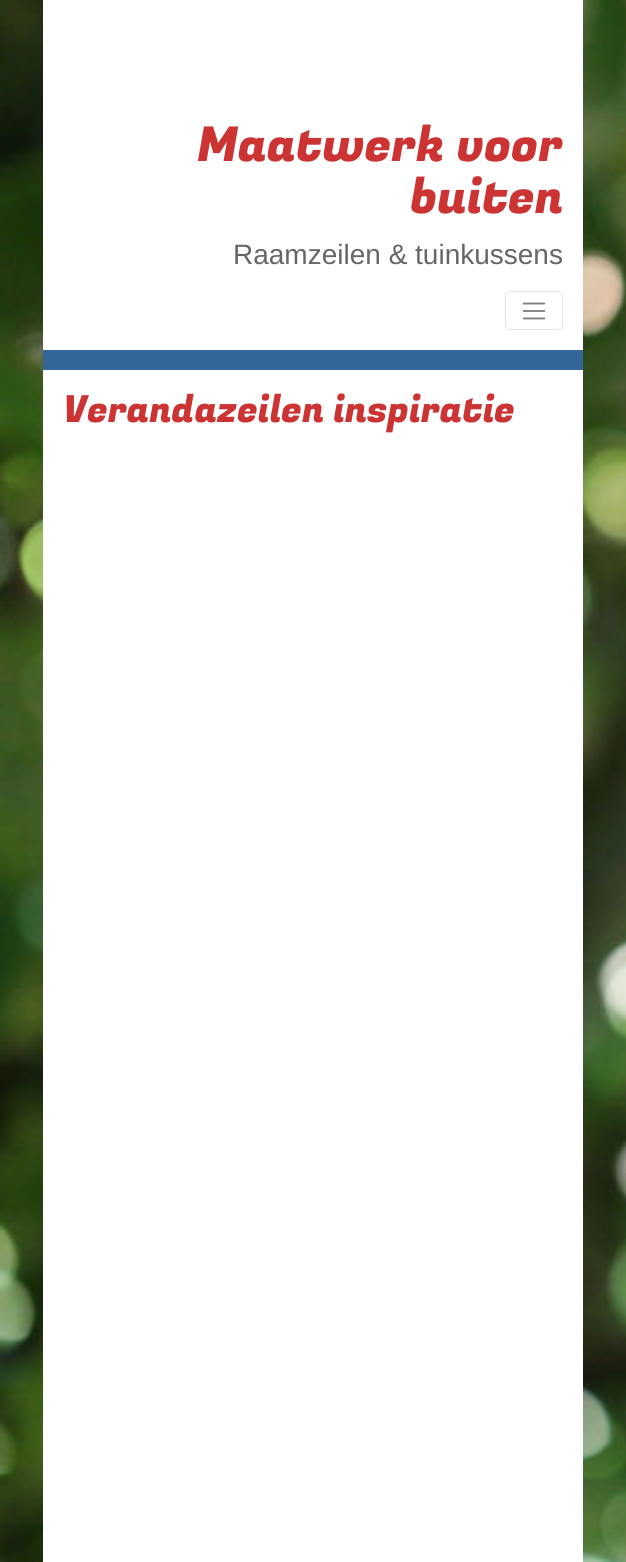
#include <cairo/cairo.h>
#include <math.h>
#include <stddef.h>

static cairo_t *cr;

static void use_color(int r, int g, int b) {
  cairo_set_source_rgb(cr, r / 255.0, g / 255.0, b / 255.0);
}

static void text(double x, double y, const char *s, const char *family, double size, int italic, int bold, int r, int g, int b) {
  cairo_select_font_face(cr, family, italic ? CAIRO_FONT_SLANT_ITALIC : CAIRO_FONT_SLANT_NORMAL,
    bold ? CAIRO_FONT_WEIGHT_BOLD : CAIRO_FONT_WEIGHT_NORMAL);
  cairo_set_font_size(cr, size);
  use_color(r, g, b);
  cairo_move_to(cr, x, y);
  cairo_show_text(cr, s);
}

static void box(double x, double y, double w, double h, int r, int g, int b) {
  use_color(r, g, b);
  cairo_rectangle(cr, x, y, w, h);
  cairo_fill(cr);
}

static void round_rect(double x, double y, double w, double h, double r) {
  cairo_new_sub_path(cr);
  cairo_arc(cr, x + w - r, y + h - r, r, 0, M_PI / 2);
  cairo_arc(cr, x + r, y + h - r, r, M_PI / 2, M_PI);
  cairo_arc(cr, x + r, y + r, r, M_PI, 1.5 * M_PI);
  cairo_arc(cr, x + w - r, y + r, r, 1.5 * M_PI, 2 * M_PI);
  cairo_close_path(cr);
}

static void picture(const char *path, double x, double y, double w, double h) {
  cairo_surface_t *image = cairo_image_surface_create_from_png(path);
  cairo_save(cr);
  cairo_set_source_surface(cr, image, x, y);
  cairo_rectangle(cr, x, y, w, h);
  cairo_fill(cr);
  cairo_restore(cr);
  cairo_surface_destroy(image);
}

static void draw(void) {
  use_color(255, 255, 255);
  cairo_paint(cr);
  picture("img_01.png", 0, 0, 626, 1562);
  box(43, 0, 540, 350, 255, 255, 255);
  box(43, 350, 540, 20, 51, 102, 153);
  round_rect(505.5, 291.5, 57, 38, 4.5);
  use_color(230, 230, 230);
  cairo_set_line_width(cr, 1);
  cairo_stroke(cr);
  picture("img_02.png", 522, 302, 24, 18);
  box(43, 370, 540, 1192, 255, 255, 255);
  text(197, 161, "Maatwerk voor", "Fugaz One", 48, 0, 0, 204, 51, 51);
  text(410, 213, "buiten", "Fugaz One", 48, 0, 0, 204, 51, 51);
  text(233, 264, "Raamzeilen & tuinkussens", "Liberation Sans", 28, 0, 0, 102, 102, 102);
  text(63, 422, "Verandazeilen inspiratie", "Fugaz One", 37.25, 0, 0, 204, 51, 51);
}

int main(void) {
  cairo_surface_t *surface = cairo_image_surface_create(CAIRO_FORMAT_RGB24, 626, 1562);
  cr = cairo_create(surface);
  cairo_font_options_t *options = cairo_font_options_create();
  cairo_font_options_set_hint_metrics(options, CAIRO_HINT_METRICS_OFF);
  cairo_font_options_set_hint_style(options, CAIRO_HINT_STYLE_NONE);
  cairo_set_font_options(cr, options);
  cairo_set_miter_limit(cr, 4);
  draw();
  cairo_surface_write_to_png(surface, "out.png");
  cairo_font_options_destroy(options);
  cairo_destroy(cr);
  cairo_surface_destroy(surface);
  return 0;
}
